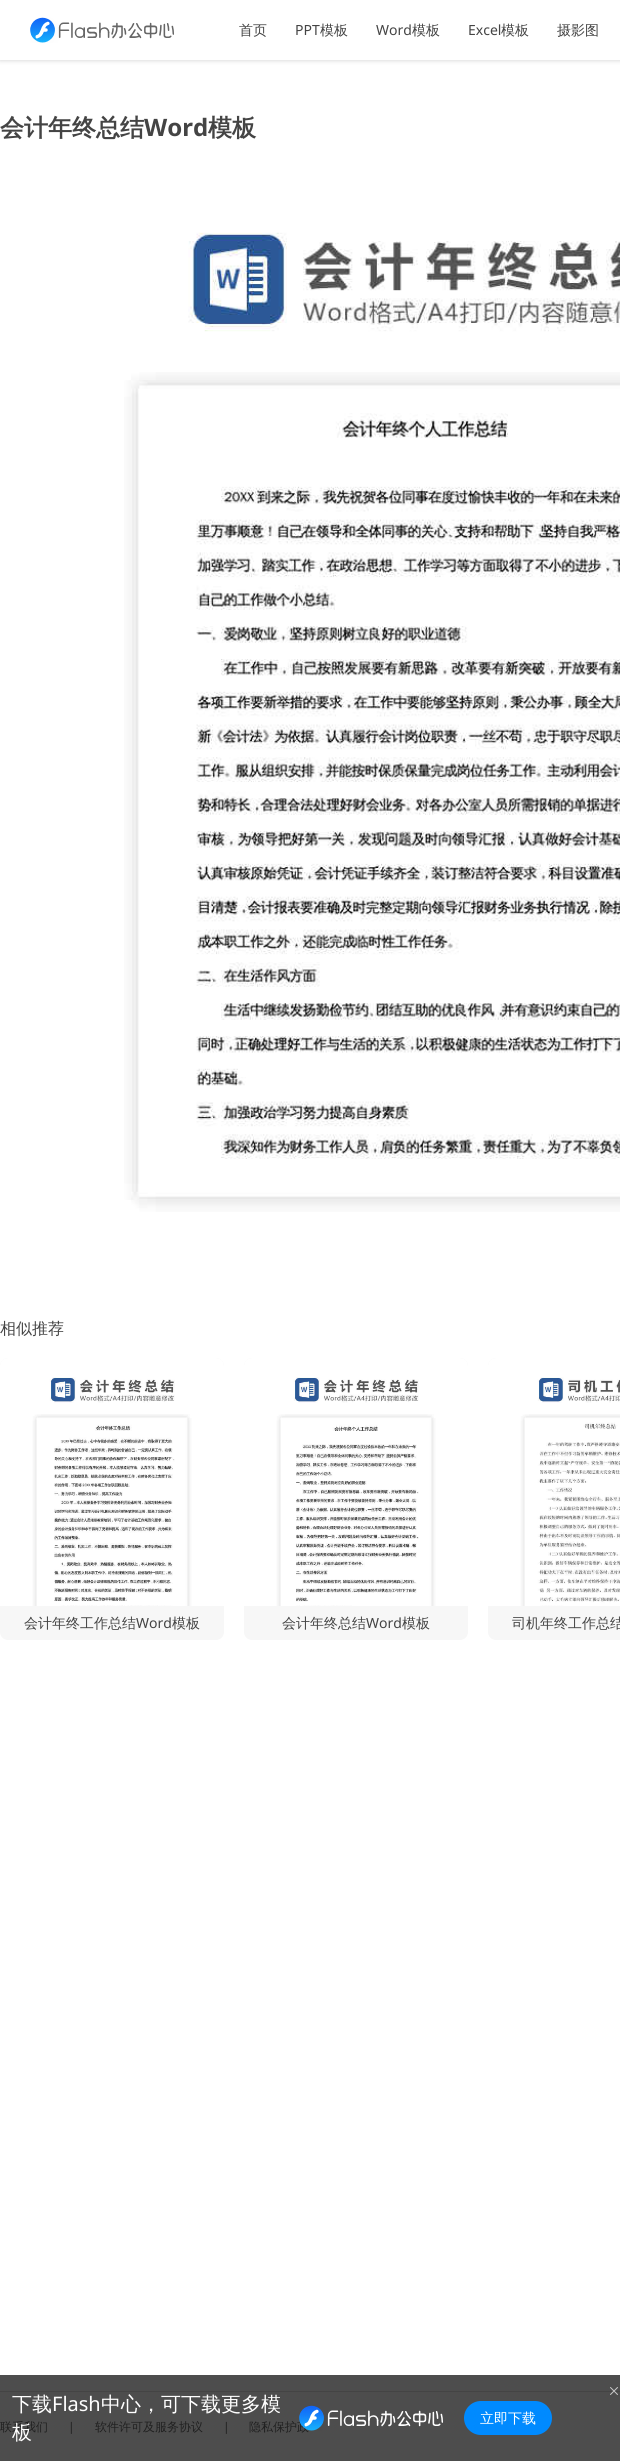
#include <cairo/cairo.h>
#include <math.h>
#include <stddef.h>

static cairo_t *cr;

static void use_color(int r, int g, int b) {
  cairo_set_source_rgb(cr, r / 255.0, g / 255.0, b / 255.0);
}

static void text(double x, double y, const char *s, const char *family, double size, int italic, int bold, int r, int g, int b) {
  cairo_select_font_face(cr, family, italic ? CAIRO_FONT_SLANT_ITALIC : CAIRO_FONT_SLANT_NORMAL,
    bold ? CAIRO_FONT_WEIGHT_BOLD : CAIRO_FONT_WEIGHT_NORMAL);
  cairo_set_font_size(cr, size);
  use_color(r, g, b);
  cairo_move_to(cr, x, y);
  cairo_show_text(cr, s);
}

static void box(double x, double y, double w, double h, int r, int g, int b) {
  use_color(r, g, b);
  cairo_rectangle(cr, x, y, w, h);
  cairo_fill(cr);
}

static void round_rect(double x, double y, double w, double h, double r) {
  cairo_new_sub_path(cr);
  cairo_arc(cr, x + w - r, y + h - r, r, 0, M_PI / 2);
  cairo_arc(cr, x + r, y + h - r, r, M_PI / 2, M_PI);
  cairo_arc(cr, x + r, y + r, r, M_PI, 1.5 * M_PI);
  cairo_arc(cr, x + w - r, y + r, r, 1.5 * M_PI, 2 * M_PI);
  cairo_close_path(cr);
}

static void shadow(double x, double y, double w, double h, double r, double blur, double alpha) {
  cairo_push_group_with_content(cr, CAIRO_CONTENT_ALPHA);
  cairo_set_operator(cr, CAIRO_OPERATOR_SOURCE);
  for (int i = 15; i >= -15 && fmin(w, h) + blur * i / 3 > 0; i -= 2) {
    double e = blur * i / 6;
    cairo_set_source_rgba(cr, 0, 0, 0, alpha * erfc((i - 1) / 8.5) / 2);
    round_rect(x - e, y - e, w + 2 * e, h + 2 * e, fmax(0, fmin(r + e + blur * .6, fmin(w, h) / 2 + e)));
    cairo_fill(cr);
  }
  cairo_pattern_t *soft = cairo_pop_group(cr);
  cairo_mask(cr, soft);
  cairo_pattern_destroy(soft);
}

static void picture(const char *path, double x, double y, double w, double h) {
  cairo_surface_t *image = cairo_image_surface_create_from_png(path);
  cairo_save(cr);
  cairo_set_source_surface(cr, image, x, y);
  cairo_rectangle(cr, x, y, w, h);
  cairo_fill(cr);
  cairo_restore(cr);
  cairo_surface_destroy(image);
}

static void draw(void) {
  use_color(255, 255, 255);
  cairo_paint(cr);
  box(0, 2375, 620, 86, 77, 77, 77);
  cairo_save(cr);
  cairo_rectangle(cr, 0, 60, 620, 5);
  cairo_clip(cr);
  use_color(204, 204, 204);
  shadow(0, 0, 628, 60, 0, 2.5, 1);
  cairo_restore(cr);
  picture("img_01.png", 30, 17, 144, 26);
  picture("img_02.png", 124, 232, 496, 980);
  use_color(247, 247, 247);
  round_rect(0, 1358, 224, 282, 8);
  cairo_fill(cr);
  picture("img_03.png", 0, 1358, 224, 248);
  round_rect(244, 1358, 224, 282, 8);
  cairo_fill(cr);
  picture("img_04.png", 244, 1358, 224, 248);
  round_rect(488, 1358, 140, 282, 8);
  cairo_fill(cr);
  picture("img_05.png", 488, 1358, 132, 248);
  box(0, 2391, 620, 1, 68, 68, 68);
  picture("img_06.png", 610, 2387, 8, 8);
  use_color(0, 138, 255);
  round_rect(464, 2401, 88, 34, 17);
  cairo_fill(cr);
  text(239, 35, "首页", "WenQuanYi Zen Hei Medium", 14, 0, 0, 68, 68, 68);
  text(295, 35, "PPT", "Noto Sans", 14, 0, 0, 68, 68, 68);
  text(320, 35, "模板", "WenQuanYi Zen Hei Medium", 14, 0, 0, 68, 68, 68);
  text(376, 35, "Word", "Noto Sans", 14, 0, 0, 68, 68, 68);
  text(412, 35, "模板", "WenQuanYi Zen Hei Medium", 14, 0, 0, 68, 68, 68);
  text(468, 35, "Excel", "Noto Sans", 14, 0, 0, 68, 68, 68);
  text(501, 35, "模板", "WenQuanYi Zen Hei Medium", 14, 0, 0, 68, 68, 68);
  text(557, 35, "摄影图", "WenQuanYi Zen Hei Medium", 14, 0, 0, 68, 68, 68);
  text(0, 136, "会计年终总结", "WenQuanYi Zen Hei", 24, 0, 1, 68, 68, 68);
  text(144, 136, "Word", "Noto Sans", 24, 0, 1, 68, 68, 68);
  text(208, 136, "模板", "WenQuanYi Zen Hei", 24, 0, 1, 68, 68, 68);
  text(0, 1334, "相似推荐", "WenQuanYi Zen Hei Medium", 16, 0, 0, 68, 68, 68);
  text(24, 1628, "会计年终工作总结", "WenQuanYi Zen Hei Medium", 14, 0, 0, 68, 68, 68);
  text(136, 1628, "Word", "Noto Sans", 14, 0, 0, 68, 68, 68);
  text(172, 1628, "模板", "WenQuanYi Zen Hei Medium", 14, 0, 0, 68, 68, 68);
  text(282, 1628, "会计年终总结", "WenQuanYi Zen Hei Medium", 14, 0, 0, 68, 68, 68);
  text(366, 1628, "Word", "Noto Sans", 14, 0, 0, 68, 68, 68);
  text(402, 1628, "模板", "WenQuanYi Zen Hei Medium", 14, 0, 0, 68, 68, 68);
  text(512, 1628, "司机年终工作总结", "WenQuanYi Zen Hei Medium", 14, 0, 0, 68, 68, 68);
  text(12, 2411, "下载", "WenQuanYi Zen Hei Medium", 20, 0, 0, 255, 255, 255);
  text(52, 2411, "Flash", "Noto Sans", 20, 0, 0, 255, 255, 255);
  text(101, 2411, "中心，可下载更多模", "WenQuanYi Zen Hei Medium", 20, 0, 0, 255, 255, 255);
  text(480, 2423, "立即下载", "WenQuanYi Zen Hei Medium", 14, 0, 0, 255, 255, 255);
  text(0, 2431, "联系我们", "WenQuanYi Zen Hei Medium", 12, 0, 0, 32, 32, 32);
  text(12, 2439, "板", "WenQuanYi Zen Hei Medium", 20, 0, 0, 255, 255, 255);
  text(68, 2431, "|", "Noto Sans", 12, 0, 0, 32, 32, 32);
  text(95, 2431, "软件许可及服务协议", "WenQuanYi Zen Hei Medium", 12, 0, 0, 32, 32, 32);
  text(223, 2431, "|", "Noto Sans", 12, 0, 0, 32, 32, 32);
  text(249, 2431, "隐私保护政", "WenQuanYi Zen Hei Medium", 12, 0, 0, 32, 32, 32);
  picture("img_07.png", 299, 2405, 144, 26);
}

int main(void) {
  cairo_surface_t *surface = cairo_image_surface_create(CAIRO_FORMAT_RGB24, 620, 2461);
  cr = cairo_create(surface);
  cairo_font_options_t *options = cairo_font_options_create();
  cairo_font_options_set_hint_metrics(options, CAIRO_HINT_METRICS_OFF);
  cairo_font_options_set_hint_style(options, CAIRO_HINT_STYLE_NONE);
  cairo_set_font_options(cr, options);
  cairo_set_miter_limit(cr, 4);
  draw();
  cairo_surface_write_to_png(surface, "out.png");
  cairo_font_options_destroy(options);
  cairo_destroy(cr);
  cairo_surface_destroy(surface);
  return 0;
}
